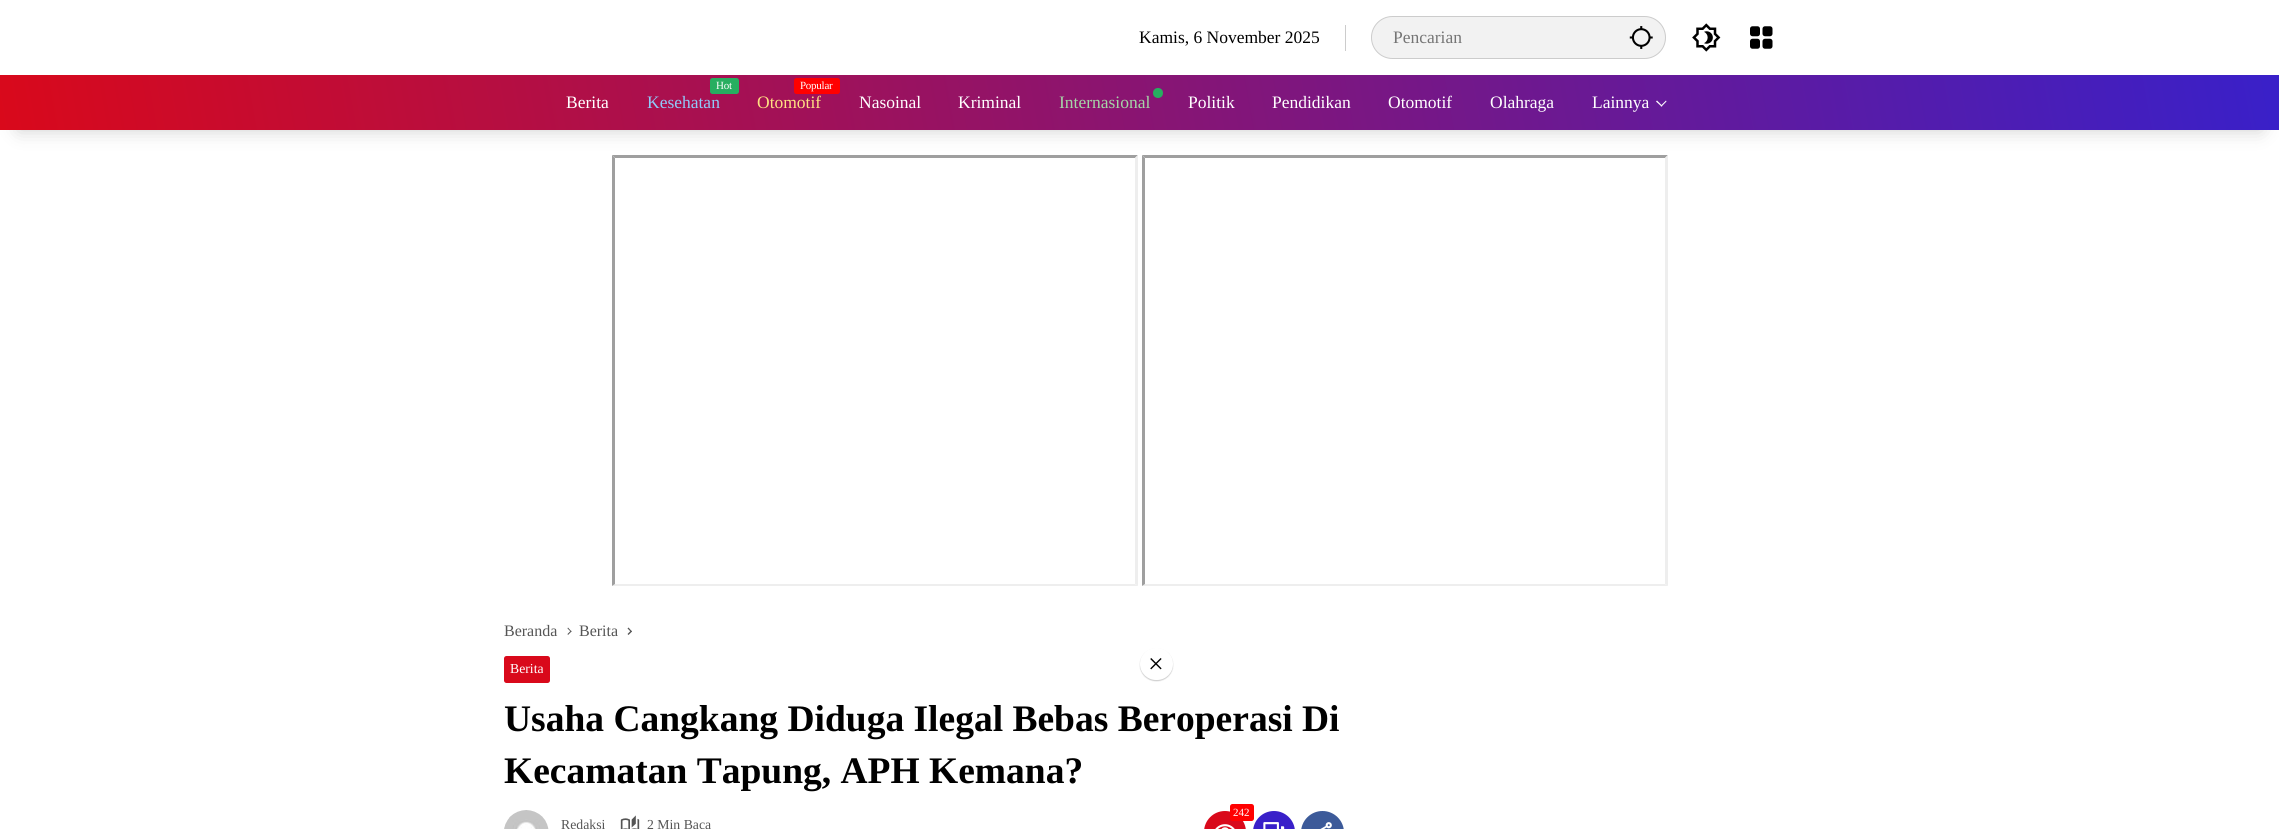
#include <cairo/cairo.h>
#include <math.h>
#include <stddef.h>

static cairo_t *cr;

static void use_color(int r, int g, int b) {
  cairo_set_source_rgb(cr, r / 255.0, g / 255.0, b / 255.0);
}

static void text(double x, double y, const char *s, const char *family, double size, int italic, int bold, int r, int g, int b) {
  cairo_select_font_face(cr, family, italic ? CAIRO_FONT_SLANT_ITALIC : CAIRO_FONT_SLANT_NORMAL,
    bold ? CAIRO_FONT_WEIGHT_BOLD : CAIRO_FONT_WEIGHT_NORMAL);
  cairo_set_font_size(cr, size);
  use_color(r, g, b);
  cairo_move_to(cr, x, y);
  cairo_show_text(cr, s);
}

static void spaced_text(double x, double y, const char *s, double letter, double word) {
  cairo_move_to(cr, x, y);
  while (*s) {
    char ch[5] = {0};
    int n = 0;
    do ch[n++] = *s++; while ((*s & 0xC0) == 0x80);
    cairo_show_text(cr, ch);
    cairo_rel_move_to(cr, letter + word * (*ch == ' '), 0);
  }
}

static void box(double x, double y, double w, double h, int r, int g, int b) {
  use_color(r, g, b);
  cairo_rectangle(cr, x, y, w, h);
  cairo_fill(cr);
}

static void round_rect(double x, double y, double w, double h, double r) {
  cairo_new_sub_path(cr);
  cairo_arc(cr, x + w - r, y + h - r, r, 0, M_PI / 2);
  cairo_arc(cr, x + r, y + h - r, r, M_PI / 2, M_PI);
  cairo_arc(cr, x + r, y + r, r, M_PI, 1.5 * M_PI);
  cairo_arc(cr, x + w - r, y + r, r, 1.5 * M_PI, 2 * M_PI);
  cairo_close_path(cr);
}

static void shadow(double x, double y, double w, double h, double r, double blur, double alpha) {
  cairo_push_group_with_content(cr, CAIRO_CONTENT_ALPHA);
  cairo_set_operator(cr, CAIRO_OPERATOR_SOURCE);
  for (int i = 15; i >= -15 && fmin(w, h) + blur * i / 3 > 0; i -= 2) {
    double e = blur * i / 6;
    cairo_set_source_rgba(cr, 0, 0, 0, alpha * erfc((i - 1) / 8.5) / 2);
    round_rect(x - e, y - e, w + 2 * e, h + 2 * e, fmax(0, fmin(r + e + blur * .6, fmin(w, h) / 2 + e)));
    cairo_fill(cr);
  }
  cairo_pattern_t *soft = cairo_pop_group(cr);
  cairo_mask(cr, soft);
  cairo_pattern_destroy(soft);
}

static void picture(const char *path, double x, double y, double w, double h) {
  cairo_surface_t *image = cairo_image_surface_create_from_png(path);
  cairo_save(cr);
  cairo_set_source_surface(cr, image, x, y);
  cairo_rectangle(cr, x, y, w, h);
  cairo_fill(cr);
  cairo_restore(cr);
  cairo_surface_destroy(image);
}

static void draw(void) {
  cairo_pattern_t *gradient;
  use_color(255, 255, 255);
  cairo_paint(cr);
  box(1345, 25, 1, 26, 204, 204, 204);
  use_color(242, 242, 242);
  round_rect(1371.5, 16.5, 294, 42, 21);
  cairo_fill_preserve(cr);
  use_color(204, 204, 204);
  cairo_set_line_width(cr, 1);
  cairo_stroke(cr);
  picture("img_01.png", 1629, 26, 24, 23);
  picture("img_02.png", 1692, 23, 29, 29);
  picture("img_03.png", 1750, 26, 23, 23);
  use_color(159, 159, 159);
  cairo_new_path(cr);
  cairo_move_to(cr, 612, 155);
  cairo_line_to(cr, 1138, 155);
  cairo_line_to(cr, 1135, 158);
  cairo_line_to(cr, 615, 158);
  cairo_close_path(cr);
  cairo_fill(cr);
  use_color(238, 238, 238);
  cairo_new_path(cr);
  cairo_move_to(cr, 1138, 155);
  cairo_line_to(cr, 1138, 586);
  cairo_line_to(cr, 1135, 584);
  cairo_line_to(cr, 1135, 158);
  cairo_close_path(cr);
  cairo_fill(cr);
  cairo_new_path(cr);
  cairo_move_to(cr, 1138, 586);
  cairo_line_to(cr, 612, 586);
  cairo_line_to(cr, 615, 584);
  cairo_line_to(cr, 1135, 584);
  cairo_close_path(cr);
  cairo_fill(cr);
  use_color(159, 159, 159);
  cairo_new_path(cr);
  cairo_move_to(cr, 612, 586);
  cairo_line_to(cr, 612, 155);
  cairo_line_to(cr, 615, 158);
  cairo_line_to(cr, 615, 584);
  cairo_close_path(cr);
  cairo_fill(cr);
  cairo_new_path(cr);
  cairo_move_to(cr, 1142, 155);
  cairo_line_to(cr, 1668, 155);
  cairo_line_to(cr, 1665, 158);
  cairo_line_to(cr, 1145, 158);
  cairo_close_path(cr);
  cairo_fill(cr);
  use_color(238, 238, 238);
  cairo_new_path(cr);
  cairo_move_to(cr, 1668, 155);
  cairo_line_to(cr, 1668, 586);
  cairo_line_to(cr, 1665, 584);
  cairo_line_to(cr, 1665, 158);
  cairo_close_path(cr);
  cairo_fill(cr);
  cairo_new_path(cr);
  cairo_move_to(cr, 1668, 586);
  cairo_line_to(cr, 1142, 586);
  cairo_line_to(cr, 1145, 584);
  cairo_line_to(cr, 1665, 584);
  cairo_close_path(cr);
  cairo_fill(cr);
  use_color(159, 159, 159);
  cairo_new_path(cr);
  cairo_move_to(cr, 1142, 586);
  cairo_line_to(cr, 1142, 155);
  cairo_line_to(cr, 1145, 158);
  cairo_line_to(cr, 1145, 584);
  cairo_close_path(cr);
  cairo_fill(cr);
  use_color(0, 0, 0);
  shadow(19, 113, 2242, 17, 0, 9.5, 0.2);
  gradient = cairo_pattern_create_linear(30, 298, 2250, -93);
  cairo_pattern_add_color_stop_rgba(gradient, 0, 0.851, 0.035, 0.106, 1);
  cairo_pattern_add_color_stop_rgba(gradient, 1, 0.224, 0.125, 0.788, 1);
  cairo_set_source(cr, gradient);
  cairo_pattern_destroy(gradient);
  cairo_rectangle(cr, 0, 75, 2279, 55);
  cairo_fill(cr);
  use_color(39, 174, 96);
  round_rect(710, 78, 29, 16, 2.5);
  cairo_fill(cr);
  use_color(255, 0, 0);
  round_rect(794, 78, 46, 16, 2.5);
  cairo_fill(cr);
  use_color(39, 174, 96);
  cairo_arc(cr, 1158, 93, 5, 0, 2 * M_PI);
  cairo_fill(cr);
  use_color(255, 255, 255);
  cairo_new_path(cr);
  cairo_move_to(cr, 1666, 100.5);
  cairo_line_to(cr, 1666.5, 101.5);
  cairo_line_to(cr, 1661.5, 106.5);
  cairo_line_to(cr, 1660.5, 106);
  cairo_close_path(cr);
  cairo_fill(cr);
  cairo_new_path(cr);
  cairo_move_to(cr, 1657, 100.5);
  cairo_line_to(cr, 1662.5, 106);
  cairo_line_to(cr, 1661.5, 106.5);
  cairo_line_to(cr, 1656, 101.5);
  cairo_close_path(cr);
  cairo_fill(cr);
  use_color(85, 85, 85);
  cairo_new_path(cr);
  cairo_move_to(cr, 567.5, 628.5);
  cairo_line_to(cr, 568, 627.5);
  cairo_line_to(cr, 571.5, 631.5);
  cairo_line_to(cr, 571, 632);
  cairo_close_path(cr);
  cairo_fill(cr);
  cairo_new_path(cr);
  cairo_move_to(cr, 567.5, 634);
  cairo_line_to(cr, 571, 630.5);
  cairo_line_to(cr, 571.5, 631.5);
  cairo_line_to(cr, 568, 635);
  cairo_close_path(cr);
  cairo_fill(cr);
  cairo_new_path(cr);
  cairo_move_to(cr, 627.5, 628.5);
  cairo_line_to(cr, 628.5, 627.5);
  cairo_line_to(cr, 632, 631.5);
  cairo_line_to(cr, 631, 632);
  cairo_close_path(cr);
  cairo_fill(cr);
  cairo_new_path(cr);
  cairo_move_to(cr, 627.5, 634);
  cairo_line_to(cr, 631, 630.5);
  cairo_line_to(cr, 632, 631.5);
  cairo_line_to(cr, 628.5, 635);
  cairo_close_path(cr);
  cairo_fill(cr);
  use_color(217, 9, 27);
  round_rect(504, 656, 46, 27, 2.5);
  cairo_fill(cr);
  picture("img_04.png", 504, 810, 45, 19);
  picture("img_05.png", 620, 815, 20, 14);
  round_rect(1204, 811, 42, 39, 21);
  cairo_fill(cr);
  use_color(255, 0, 0);
  round_rect(1230, 804, 24, 17, 2.5);
  cairo_fill(cr);
  picture("img_06.png", 1215, 824, 20, 5);
  use_color(57, 32, 201);
  round_rect(1253, 811, 42, 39, 21);
  cairo_fill(cr);
  picture("img_07.png", 1263, 822, 22, 7);
  use_color(60, 90, 153);
  round_rect(1301, 811, 43, 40, 21.5);
  cairo_fill(cr);
  picture("img_08.png", 1320, 822, 12, 7);
  use_color(0, 0, 0);
  shadow(1140, 649, 33, 32, 16, 0.5, 0.2);
  use_color(255, 255, 255);
  round_rect(1140, 648, 33, 32, 16);
  cairo_fill(cr);
  text(1139, 43, "Kamis, 6 November 2025", "Liberation Serif", 17.5, 0, 0, 0, 0, 0);
  text(1393, 43, "Pencarian", "Liberation Serif", 17.5, 0, 0, 117, 117, 117);
  text(566, 108, "Berita", "Liberation Serif", 17.5, 0, 0, 255, 255, 255);
  cairo_set_font_size(cr, 11);
  spaced_text(716, 89, "Hot", -0.25, 0);
  text(647, 108, "Kesehatan", "Liberation Serif", 17.5, 0, 0, 144, 202, 249);
  cairo_set_font_size(cr, 11);
  use_color(255, 255, 255);
  spaced_text(800, 89, "Popular", -0.25, 0);
  text(757, 108, "Otomotif", "Liberation Serif", 17.5, 0, 0, 255, 224, 130);
  text(859, 108, "Nasoinal", "Liberation Serif", 17.5, 0, 0, 255, 255, 255);
  text(958, 108, "Kriminal", "Liberation Serif", 17.5, 0, 0, 255, 255, 255);
  text(1059, 108, "Internasional", "Liberation Serif", 17.5, 0, 0, 165, 214, 167);
  text(1188, 108, "Politik", "Liberation Serif", 17.5, 0, 0, 255, 255, 255);
  text(1272, 108, "Pendidikan", "Liberation Serif", 17.5, 0, 0, 255, 255, 255);
  text(1388, 108, "Otomotif", "Liberation Serif", 17.5, 0, 0, 255, 255, 255);
  text(1490, 108, "Olahraga", "Liberation Serif", 17.5, 0, 0, 255, 255, 255);
  text(1592, 108, "Lainnya", "Liberation Serif", 17.5, 0, 0, 255, 255, 255);
  text(504, 636, "Beranda", "Liberation Serif", 16, 0, 0, 85, 85, 85);
  text(579, 636, "Berita", "Liberation Serif", 16, 0, 0, 85, 85, 85);
  text(510, 673, "Berita", "Liberation Serif", 13.75, 0, 0, 255, 255, 255);
  text(504, 731, "Usaha Cangkang Diduga Ilegal Bebas Beroperasi Di", "Liberation Serif", 37.5, 0, 1, 0, 0, 0);
  text(504, 783, "Kecamatan Tapung, APH Kemana?", "Liberation Serif", 37.5, 0, 1, 0, 0, 0);
  text(561, 829, "Redaksi", "Liberation Serif", 13.75, 0, 0, 85, 85, 85);
  text(647, 829, "2 Min Baca", "Liberation Serif", 13.75, 0, 0, 85, 85, 85);
  text(1233, 816, "242", "Liberation Serif", 11, 0, 0, 255, 255, 255);
  text(1148, 673, "×", "Liberation Serif", 28, 0, 0, 0, 0, 0);
}

int main(void) {
  cairo_surface_t *surface = cairo_image_surface_create(CAIRO_FORMAT_RGB24, 2279, 829);
  cr = cairo_create(surface);
  cairo_font_options_t *options = cairo_font_options_create();
  cairo_font_options_set_hint_metrics(options, CAIRO_HINT_METRICS_OFF);
  cairo_font_options_set_hint_style(options, CAIRO_HINT_STYLE_NONE);
  cairo_set_font_options(cr, options);
  cairo_set_miter_limit(cr, 4);
  draw();
  cairo_surface_write_to_png(surface, "out.png");
  cairo_font_options_destroy(options);
  cairo_destroy(cr);
  cairo_surface_destroy(surface);
  return 0;
}
